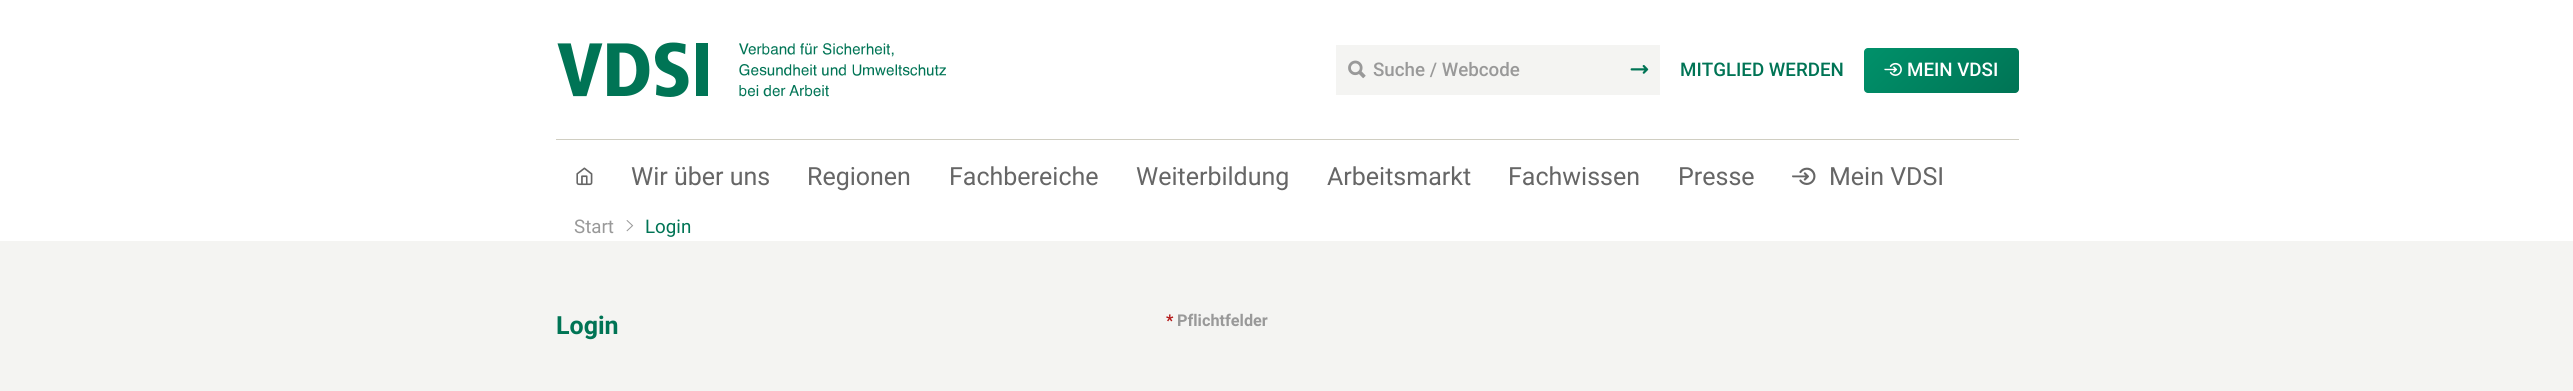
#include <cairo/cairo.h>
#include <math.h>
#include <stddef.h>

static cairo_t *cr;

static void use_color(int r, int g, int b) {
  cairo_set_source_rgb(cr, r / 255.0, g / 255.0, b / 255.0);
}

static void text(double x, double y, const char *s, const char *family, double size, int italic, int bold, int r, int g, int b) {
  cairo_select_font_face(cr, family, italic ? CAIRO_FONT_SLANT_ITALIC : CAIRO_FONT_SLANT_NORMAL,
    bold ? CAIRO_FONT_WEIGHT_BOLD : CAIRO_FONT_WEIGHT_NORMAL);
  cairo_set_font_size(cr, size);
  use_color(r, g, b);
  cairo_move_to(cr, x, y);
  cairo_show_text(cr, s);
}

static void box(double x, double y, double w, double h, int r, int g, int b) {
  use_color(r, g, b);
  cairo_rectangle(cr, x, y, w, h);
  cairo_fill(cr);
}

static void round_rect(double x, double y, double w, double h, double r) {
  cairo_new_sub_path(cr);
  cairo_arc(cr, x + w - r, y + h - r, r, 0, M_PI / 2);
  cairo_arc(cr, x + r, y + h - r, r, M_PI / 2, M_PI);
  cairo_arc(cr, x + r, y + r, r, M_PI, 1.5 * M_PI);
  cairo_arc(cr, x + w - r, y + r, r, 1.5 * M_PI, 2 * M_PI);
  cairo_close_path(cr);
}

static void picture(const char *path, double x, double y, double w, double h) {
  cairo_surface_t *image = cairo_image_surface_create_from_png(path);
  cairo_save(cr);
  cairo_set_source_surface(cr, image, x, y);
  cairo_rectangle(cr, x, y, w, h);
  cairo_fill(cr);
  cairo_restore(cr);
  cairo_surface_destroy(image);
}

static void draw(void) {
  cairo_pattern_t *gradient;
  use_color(255, 255, 255);
  cairo_paint(cr);
  box(556, 139, 1463, 1, 208, 206, 194);
  picture("img_01.png", 557, 42, 389, 55);
  box(1336, 45, 324, 50, 244, 244, 242);
  picture("img_02.png", 1348, 60, 18, 19);
  picture("img_03.png", 1630, 65, 19, 9);
  gradient = cairo_pattern_create_linear(1891, 20, 1991, 120);
  cairo_pattern_add_color_stop_rgba(gradient, 0, 0, 0.569, 0.416, 1);
  cairo_pattern_add_color_stop_rgba(gradient, 1, 0, 0.455, 0.333, 1);
  cairo_set_source(cr, gradient);
  cairo_pattern_destroy(gradient);
  round_rect(1864, 48, 155, 45, 4);
  cairo_fill(cr);
  picture("img_04.png", 1884, 62, 18, 14);
  picture("img_05.png", 576, 167, 17, 19);
  picture("img_06.png", 1792, 167, 24, 18);
  picture("img_07.png", 626, 220, 8, 12);
  box(0, 241, 2573, 150, 244, 244, 242);
  text(1373, 76, "Suche / Webcode", "Roboto Medium", 18.75, 0, 0, 153, 153, 153);
  text(1680, 76, "MITGLIED WERDEN", "Roboto Medium", 18.75, 0, 0, 0, 116, 85);
  text(1907, 76, "MEIN VDSI", "Roboto Medium", 18.75, 0, 0, 255, 255, 255);
  text(631, 185, "Wir über uns", "Roboto", 25, 0, 0, 102, 102, 102);
  text(807, 185, "Regionen", "Roboto", 25, 0, 0, 102, 102, 102);
  text(949, 185, "Fachbereiche", "Roboto", 25, 0, 0, 102, 102, 102);
  text(1136, 185, "Weiterbildung", "Roboto", 25, 0, 0, 102, 102, 102);
  text(1327, 185, "Arbeitsmarkt", "Roboto", 25, 0, 0, 102, 102, 102);
  text(1508, 185, "Fachwissen", "Roboto", 25, 0, 0, 102, 102, 102);
  text(1678, 185, "Presse", "Roboto", 25, 0, 0, 102, 102, 102);
  text(1829, 185, "Mein VDSI", "Roboto", 25, 0, 0, 102, 102, 102);
  text(574, 233, "Start", "Roboto", 18.75, 0, 0, 153, 153, 153);
  text(645, 233, "Login", "Roboto", 18.75, 0, 0, 0, 116, 85);
  text(556, 334, "Login", "Roboto", 25, 0, 1, 0, 116, 85);
  text(1166, 326, "*", "Roboto", 16.25, 0, 1, 180, 25, 25);
  text(1177, 326, "Pflichtfelder", "Roboto", 16.25, 0, 1, 153, 153, 153);
}

int main(void) {
  cairo_surface_t *surface = cairo_image_surface_create(CAIRO_FORMAT_RGB24, 2573, 391);
  cr = cairo_create(surface);
  cairo_font_options_t *options = cairo_font_options_create();
  cairo_font_options_set_hint_metrics(options, CAIRO_HINT_METRICS_OFF);
  cairo_font_options_set_hint_style(options, CAIRO_HINT_STYLE_NONE);
  cairo_set_font_options(cr, options);
  cairo_set_miter_limit(cr, 4);
  draw();
  cairo_surface_write_to_png(surface, "out.png");
  cairo_font_options_destroy(options);
  cairo_destroy(cr);
  cairo_surface_destroy(surface);
  return 0;
}
